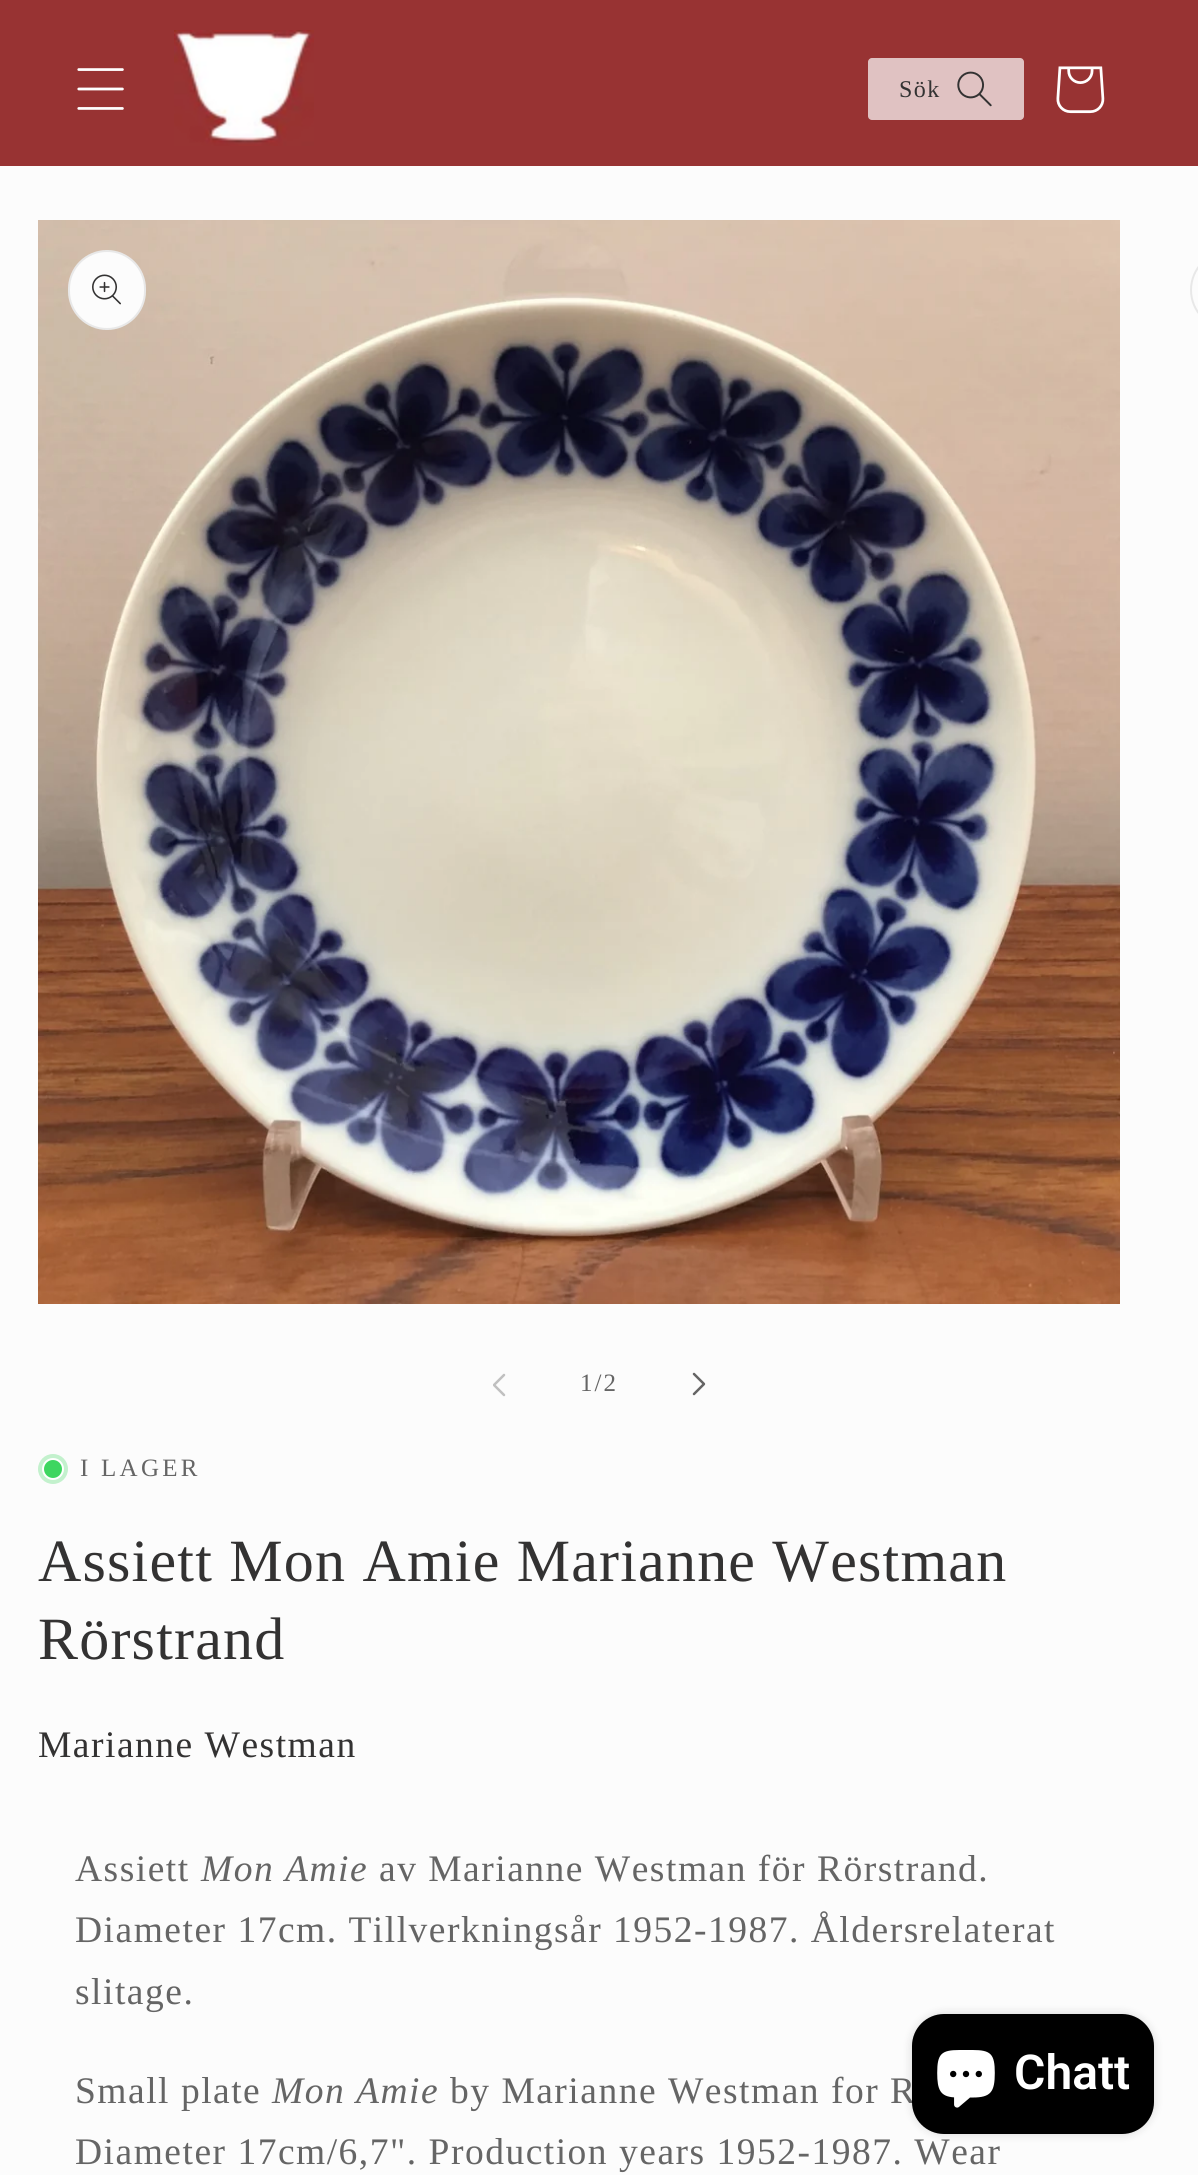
#include <cairo/cairo.h>
#include <math.h>
#include <stddef.h>

static cairo_t *cr;

static void use_color(int r, int g, int b) {
  cairo_set_source_rgb(cr, r / 255.0, g / 255.0, b / 255.0);
}

static void text(double x, double y, const char *s, const char *family, double size, int italic, int bold, int r, int g, int b) {
  cairo_select_font_face(cr, family, italic ? CAIRO_FONT_SLANT_ITALIC : CAIRO_FONT_SLANT_NORMAL,
    bold ? CAIRO_FONT_WEIGHT_BOLD : CAIRO_FONT_WEIGHT_NORMAL);
  cairo_set_font_size(cr, size);
  use_color(r, g, b);
  cairo_move_to(cr, x, y);
  cairo_show_text(cr, s);
}

static void spaced_text(double x, double y, const char *s, double letter, double word) {
  cairo_move_to(cr, x, y);
  while (*s) {
    char ch[5] = {0};
    int n = 0;
    do ch[n++] = *s++; while ((*s & 0xC0) == 0x80);
    cairo_show_text(cr, ch);
    cairo_rel_move_to(cr, letter + word * (*ch == ' '), 0);
  }
}

static void box(double x, double y, double w, double h, int r, int g, int b) {
  use_color(r, g, b);
  cairo_rectangle(cr, x, y, w, h);
  cairo_fill(cr);
}

static void round_rect(double x, double y, double w, double h, double r) {
  cairo_new_sub_path(cr);
  cairo_arc(cr, x + w - r, y + h - r, r, 0, M_PI / 2);
  cairo_arc(cr, x + r, y + h - r, r, M_PI / 2, M_PI);
  cairo_arc(cr, x + r, y + r, r, M_PI, 1.5 * M_PI);
  cairo_arc(cr, x + w - r, y + r, r, 1.5 * M_PI, 2 * M_PI);
  cairo_close_path(cr);
}

static void shadow(double x, double y, double w, double h, double r, double blur, double alpha) {
  cairo_push_group_with_content(cr, CAIRO_CONTENT_ALPHA);
  cairo_set_operator(cr, CAIRO_OPERATOR_SOURCE);
  for (int i = 15; i >= -15 && fmin(w, h) + blur * i / 3 > 0; i -= 2) {
    double e = blur * i / 6;
    cairo_set_source_rgba(cr, 0, 0, 0, alpha * erfc((i - 1) / 8.5) / 2);
    round_rect(x - e, y - e, w + 2 * e, h + 2 * e, fmax(0, fmin(r + e + blur * .6, fmin(w, h) / 2 + e)));
    cairo_fill(cr);
  }
  cairo_pattern_t *soft = cairo_pop_group(cr);
  cairo_mask(cr, soft);
  cairo_pattern_destroy(soft);
}

static void picture(const char *path, double x, double y, double w, double h) {
  cairo_surface_t *image = cairo_image_surface_create_from_png(path);
  cairo_save(cr);
  cairo_set_source_surface(cr, image, x, y);
  cairo_rectangle(cr, x, y, w, h);
  cairo_fill(cr);
  cairo_restore(cr);
  cairo_surface_destroy(image);
}

static void draw(void) {
  use_color(252, 252, 252);
  cairo_paint(cr);
  box(0, 0, 1198, 166, 152, 51, 51);
  picture("img_01.png", 77, 68, 47, 42);
  picture("img_02.png", 174, 30, 140, 116);
  use_color(224, 194, 194);
  round_rect(868, 58, 156, 62, 4);
  cairo_fill(cr);
  picture("img_03.png", 957, 71, 35, 36);
  picture("img_04.png", 1056, 66, 49, 48);
  picture("img_05.png", 38, 220, 1082, 1084);
  use_color(252, 252, 252);
  round_rect(68, 250, 78, 80, 39);
  cairo_fill(cr);
  round_rect(69, 251, 76, 78, 38);
  cairo_set_source_rgba(cr, 0.2, 0.196, 0.196, 0.1);
  cairo_stroke(cr);
  picture("img_06.png", 92, 274, 29, 31);
  round_rect(1191, 251, 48, 78, 39);
  use_color(232, 232, 232);
  cairo_stroke(cr);
  picture("img_07.png", 493, 1373, 13, 24);
  picture("img_08.png", 692, 1372, 14, 24);
  use_color(195, 241, 205);
  cairo_arc(cr, 53, 1469, 15, 0, 2 * M_PI);
  cairo_fill(cr);
  use_color(62, 214, 96);
  cairo_arc(cr, 53, 1469, 10, 0, 2 * M_PI);
  cairo_fill_preserve(cr);
  use_color(255, 255, 255);
  cairo_stroke(cr);
  use_color(0, 0, 0);
  shadow(912, 2014, 242, 120, 32, 5, 0.15);
  cairo_select_font_face(cr, "Liberation Serif", CAIRO_FONT_SLANT_NORMAL, CAIRO_FONT_WEIGHT_NORMAL);
  cairo_set_font_size(cr, 24);
  use_color(51, 50, 50);
  spaced_text(899, 97, "Sök", 1.5, 0);
  cairo_set_font_size(cr, 25);
  use_color(101, 101, 101);
  spaced_text(580, 1391, "1/2", 2, 0);
  spaced_text(80, 1476, "I LAGER", 3.25, 0);
  cairo_set_font_size(cr, 60);
  use_color(51, 50, 50);
  spaced_text(38, 1581, "Assiett Mon Amie Marianne Westman", 1.2, 0);
  spaced_text(38, 1659, "Rörstrand", 1.2, 0);
  cairo_set_font_size(cr, 37.5);
  spaced_text(38, 1757, "Marianne Westman", 1.5, 0);
  use_color(101, 101, 101);
  spaced_text(75, 1881, "Assiett", 1.5, 0);
  cairo_select_font_face(cr, "Liberation Serif", CAIRO_FONT_SLANT_ITALIC, CAIRO_FONT_WEIGHT_NORMAL);
  spaced_text(201, 1881, "Mon Amie", 1.5, 0);
  cairo_select_font_face(cr, "Liberation Serif", CAIRO_FONT_SLANT_NORMAL, CAIRO_FONT_WEIGHT_NORMAL);
  spaced_text(379, 1881, "av Marianne Westman för Rörstrand.", 1.5, 0);
  spaced_text(75, 1942, "Diameter 17cm. Tillverkningsår 1952-1987. Åldersrelaterat", 1.5, 0);
  spaced_text(75, 2004, "slitage.", 1.5, 0);
  spaced_text(75, 2103, "Small plate", 1.5, 0);
  cairo_select_font_face(cr, "Liberation Serif", CAIRO_FONT_SLANT_ITALIC, CAIRO_FONT_WEIGHT_NORMAL);
  spaced_text(272, 2103, "Mon Amie", 1.5, 0);
  cairo_select_font_face(cr, "Liberation Serif", CAIRO_FONT_SLANT_NORMAL, CAIRO_FONT_WEIGHT_NORMAL);
  spaced_text(450, 2103, "by Marianne Westman for R", 1.5, 0);
  spaced_text(75, 2164, "Diameter 17cm/6,7\". Production years 1952-1987. Wear", 1.5, 0);
  use_color(0, 0, 0);
  round_rect(912, 2014, 242, 120, 32);
  cairo_fill(cr);
  picture("img_09.png", 937, 2050, 58, 58);
  text(1014, 2089, "Chatt", "Roboto SemiBold", 48, 0, 0, 255, 255, 255);
}

int main(void) {
  cairo_surface_t *surface = cairo_image_surface_create(CAIRO_FORMAT_RGB24, 1198, 2175);
  cr = cairo_create(surface);
  cairo_font_options_t *options = cairo_font_options_create();
  cairo_font_options_set_hint_metrics(options, CAIRO_HINT_METRICS_OFF);
  cairo_font_options_set_hint_style(options, CAIRO_HINT_STYLE_NONE);
  cairo_set_font_options(cr, options);
  cairo_set_miter_limit(cr, 4);
  draw();
  cairo_surface_write_to_png(surface, "out.png");
  cairo_font_options_destroy(options);
  cairo_destroy(cr);
  cairo_surface_destroy(surface);
  return 0;
}
